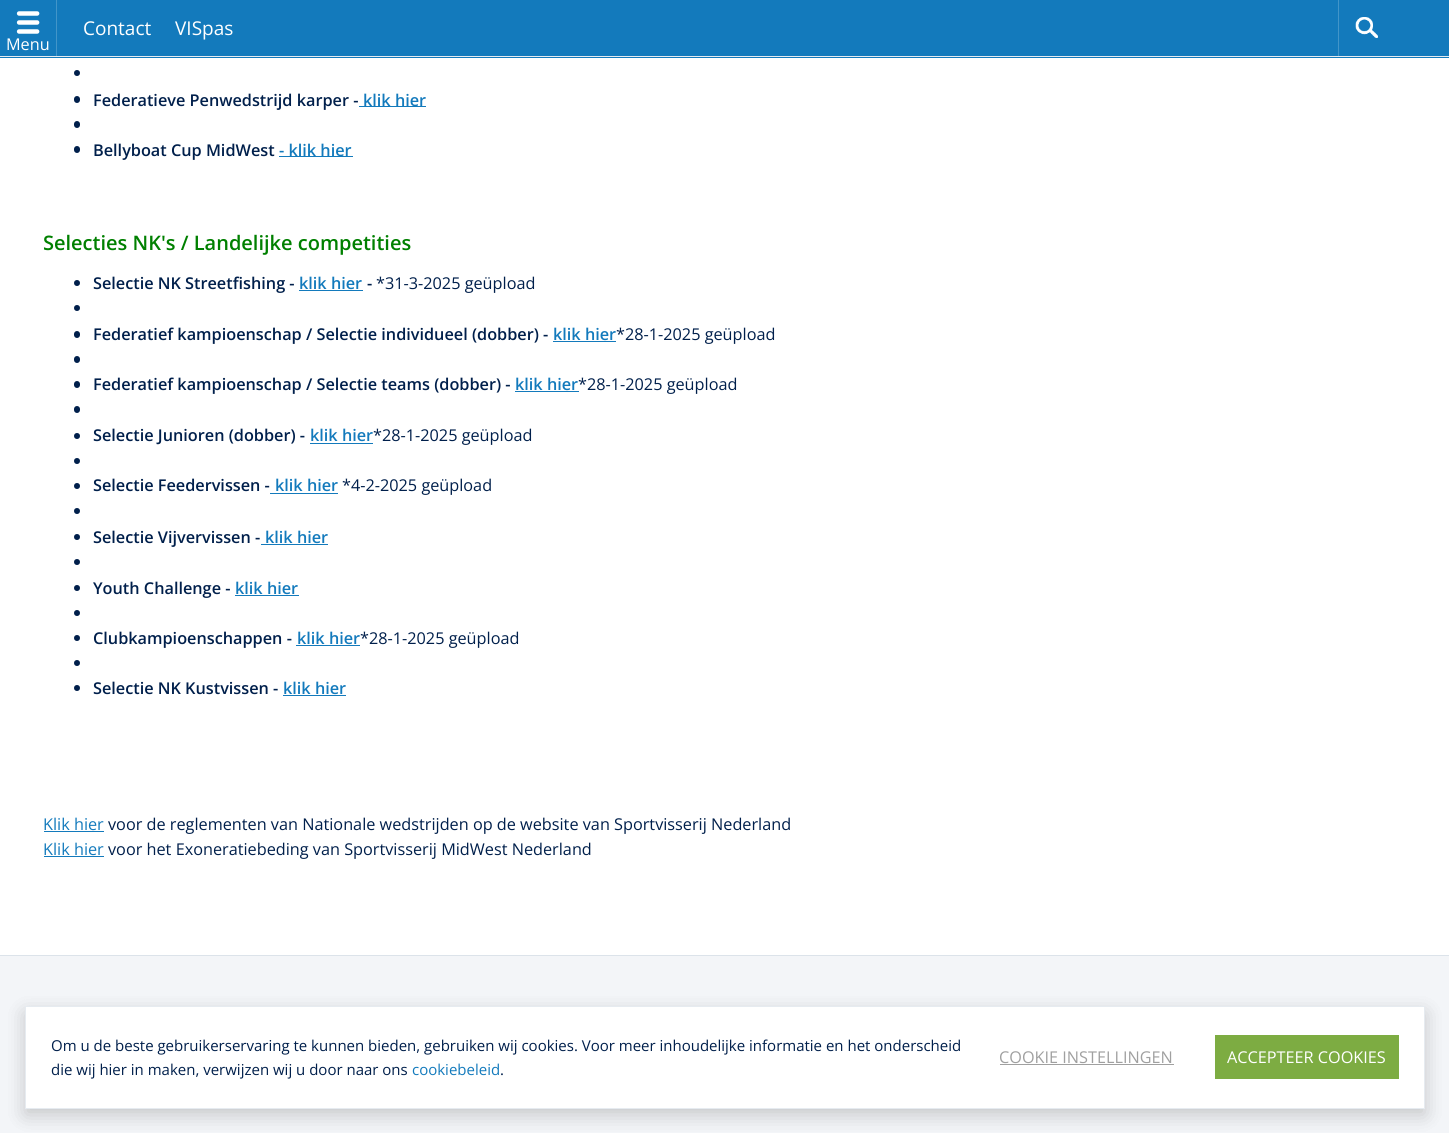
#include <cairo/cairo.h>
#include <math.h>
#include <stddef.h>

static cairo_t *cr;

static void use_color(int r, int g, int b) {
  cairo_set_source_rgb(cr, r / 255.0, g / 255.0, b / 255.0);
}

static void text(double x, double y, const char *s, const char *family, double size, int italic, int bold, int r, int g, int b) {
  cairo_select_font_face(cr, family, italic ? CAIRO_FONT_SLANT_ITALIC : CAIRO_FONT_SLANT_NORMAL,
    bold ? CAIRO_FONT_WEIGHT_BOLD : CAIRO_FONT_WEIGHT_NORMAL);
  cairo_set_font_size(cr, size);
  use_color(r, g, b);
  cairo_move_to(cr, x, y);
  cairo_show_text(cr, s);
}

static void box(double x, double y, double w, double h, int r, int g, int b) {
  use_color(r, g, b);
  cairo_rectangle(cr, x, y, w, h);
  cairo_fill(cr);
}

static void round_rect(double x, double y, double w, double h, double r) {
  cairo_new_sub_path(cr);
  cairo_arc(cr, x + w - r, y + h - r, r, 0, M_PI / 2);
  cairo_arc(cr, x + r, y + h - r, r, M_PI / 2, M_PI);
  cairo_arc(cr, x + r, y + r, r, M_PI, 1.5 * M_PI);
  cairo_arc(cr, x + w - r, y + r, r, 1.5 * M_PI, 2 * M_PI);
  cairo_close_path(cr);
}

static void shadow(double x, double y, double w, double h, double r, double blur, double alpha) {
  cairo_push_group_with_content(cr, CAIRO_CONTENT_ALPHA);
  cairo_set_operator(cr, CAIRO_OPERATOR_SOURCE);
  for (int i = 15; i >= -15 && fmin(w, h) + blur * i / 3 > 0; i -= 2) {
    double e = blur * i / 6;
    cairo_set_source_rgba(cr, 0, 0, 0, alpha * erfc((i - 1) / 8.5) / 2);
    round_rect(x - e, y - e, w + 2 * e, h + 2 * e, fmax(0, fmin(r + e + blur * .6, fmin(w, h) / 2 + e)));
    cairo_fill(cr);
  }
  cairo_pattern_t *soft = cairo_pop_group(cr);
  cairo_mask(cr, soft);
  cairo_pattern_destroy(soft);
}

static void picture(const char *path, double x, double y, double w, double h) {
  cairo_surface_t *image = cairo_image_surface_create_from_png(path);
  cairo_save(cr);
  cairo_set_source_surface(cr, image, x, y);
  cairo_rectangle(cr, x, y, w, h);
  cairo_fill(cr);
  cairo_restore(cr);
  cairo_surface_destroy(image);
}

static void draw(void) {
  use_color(255, 255, 255);
  cairo_paint(cr);
  box(0, 0, 1449, 58, 19, 122, 188);
  box(0, 56, 1449, 1, 230, 235, 240);
  picture("img_01.png", 1355, 17, 23, 21);
  box(1338, 0, 1, 56, 66, 149, 201);
  box(56, 0, 1, 56, 66, 149, 201);
  picture("img_02.png", 16, 11, 24, 23);
  use_color(0, 31, 75);
  cairo_arc(cr, 77, 73, 3, 0, 2 * M_PI);
  cairo_fill(cr);
  round_rect(74, 96, 6, 7, 3);
  cairo_fill(cr);
  box(359, 106, 67, 1, 19, 122, 188);
  use_color(0, 31, 75);
  round_rect(74, 121, 6, 7, 3);
  cairo_fill(cr);
  round_rect(74, 146, 6, 7, 3);
  cairo_fill(cr);
  box(279, 156, 74, 1, 19, 122, 188);
  use_color(0, 31, 75);
  cairo_arc(cr, 77, 283, 3, 0, 2 * M_PI);
  cairo_fill(cr);
  box(299, 290, 64, 1, 19, 122, 188);
  use_color(0, 31, 75);
  cairo_arc(cr, 77, 308, 3, 0, 2 * M_PI);
  cairo_fill(cr);
  round_rect(74, 331, 6, 7, 3);
  cairo_fill(cr);
  box(553, 341, 63, 1, 19, 122, 188);
  use_color(0, 31, 75);
  round_rect(74, 356, 6, 7, 3);
  cairo_fill(cr);
  round_rect(74, 381, 6, 7, 3);
  cairo_fill(cr);
  box(515, 391, 64, 1, 19, 122, 188);
  use_color(0, 31, 75);
  round_rect(74, 406, 6, 7, 3);
  cairo_fill(cr);
  cairo_arc(cr, 77, 436, 3, 0, 2 * M_PI);
  cairo_fill(cr);
  box(310, 443, 63, 1, 19, 122, 188);
  use_color(0, 31, 75);
  cairo_arc(cr, 77, 461, 3, 0, 2 * M_PI);
  cairo_fill(cr);
  cairo_arc(cr, 77, 486, 3, 0, 2 * M_PI);
  cairo_fill(cr);
  box(270, 493, 68, 1, 19, 122, 188);
  use_color(0, 31, 75);
  cairo_arc(cr, 77, 511, 3, 0, 2 * M_PI);
  cairo_fill(cr);
  cairo_arc(cr, 77, 537, 3, 0, 2 * M_PI);
  cairo_fill(cr);
  box(261, 544, 67, 1, 19, 122, 188);
  use_color(0, 31, 75);
  cairo_arc(cr, 77, 562, 3, 0, 2 * M_PI);
  cairo_fill(cr);
  cairo_arc(cr, 77, 588, 3, 0, 2 * M_PI);
  cairo_fill(cr);
  box(235, 595, 64, 1, 19, 122, 188);
  use_color(0, 31, 75);
  cairo_arc(cr, 77, 613, 3, 0, 2 * M_PI);
  cairo_fill(cr);
  cairo_arc(cr, 77, 638, 3, 0, 2 * M_PI);
  cairo_fill(cr);
  box(296, 645, 64, 1, 19, 122, 188);
  use_color(0, 31, 75);
  cairo_arc(cr, 77, 663, 3, 0, 2 * M_PI);
  cairo_fill(cr);
  cairo_arc(cr, 77, 688, 3, 0, 2 * M_PI);
  cairo_fill(cr);
  box(283, 695, 63, 1, 19, 122, 188);
  box(44, 831, 60, 1, 19, 122, 188);
  box(44, 856, 60, 1, 19, 122, 188);
  box(0, 956, 1449, 177, 243, 245, 248);
  box(0, 955, 1449, 1, 220, 227, 234);
  use_color(0, 0, 0);
  shadow(25, 1013, 1400, 102, 0, 9.5, 0.1);
  shadow(25, 1013, 1400, 102, 0, 9.5, 0.1);
  use_color(255, 255, 255);
  cairo_rectangle(cr, 25.5, 1006.5, 1399, 102);
  cairo_fill_preserve(cr);
  use_color(230, 235, 240);
  cairo_set_line_width(cr, 1);
  cairo_stroke(cr);
  box(1000, 1064, 174, 1, 160, 160, 160);
  box(1215, 1035, 184, 44, 125, 172, 66);
  text(83, 35, "Contact", "Open Sans", 19, 0, 0, 255, 255, 255);
  text(175, 35, "VISpas", "Open Sans", 19, 0, 0, 255, 255, 255);
  text(6, 50, "Menu", "Open Sans", 16.25, 0, 0, 255, 255, 255);
  text(93, 106, "Federatieve Penwedstrijd karper -", "Open Sans SemiBold", 16.25, 0, 0, 0, 31, 75);
  text(363, 106, "klik hier", "Open Sans SemiBold", 16.25, 0, 0, 19, 122, 188);
  text(93, 156, "Bellyboat Cup MidWest", "Open Sans SemiBold", 16.25, 0, 0, 0, 31, 75);
  text(279, 156, "- klik hier", "Open Sans SemiBold", 16.25, 0, 0, 19, 122, 188);
  text(43, 250, "Selecties NK's / Landelijke competities", "Open Sans SemiBold", 20, 0, 0, 0, 128, 0);
  text(93, 289, "Selectie NK Streetfishing -", "Open Sans SemiBold", 16.25, 0, 0, 0, 31, 75);
  text(299, 289, "klik hier", "Open Sans SemiBold", 16.25, 0, 0, 19, 122, 188);
  text(367, 289, "-", "Open Sans SemiBold", 16.25, 0, 0, 0, 31, 75);
  text(376, 289, "*31-3-2025 geüpload", "Open Sans", 16.25, 0, 0, 0, 31, 75);
  text(93, 340, "Federatief kampioenschap / Selectie individueel (dobber) -", "Open Sans SemiBold", 16.25, 0, 0, 0, 31, 75);
  text(553, 340, "klik hier", "Open Sans SemiBold", 16.25, 0, 0, 19, 122, 188);
  text(616, 340, "*28-1-2025 geüpload", "Open Sans", 16.25, 0, 0, 0, 31, 75);
  text(93, 390, "Federatief kampioenschap / Selectie teams (dobber) -", "Open Sans SemiBold", 16.25, 0, 0, 0, 31, 75);
  text(515, 390, "klik hier", "Open Sans SemiBold", 16.25, 0, 0, 19, 122, 188);
  text(578, 390, "*28-1-2025 geüpload", "Open Sans", 16.25, 0, 0, 0, 31, 75);
  text(93, 441, "Selectie Junioren (dobber) -", "Open Sans SemiBold", 16.25, 0, 0, 0, 31, 75);
  text(310, 441, "klik hier", "Open Sans SemiBold", 16.25, 0, 0, 19, 122, 188);
  text(373, 441, "*28-1-2025 geüpload", "Open Sans", 16.25, 0, 0, 0, 31, 75);
  text(93, 491, "Selectie Feedervissen -", "Open Sans SemiBold", 16.25, 0, 0, 0, 31, 75);
  text(275, 491, "klik hier", "Open Sans SemiBold", 16.25, 0, 0, 19, 122, 188);
  text(342, 491, "*4-2-2025 geüpload", "Open Sans", 16.25, 0, 0, 0, 31, 75);
  text(93, 543, "Selectie Vijvervissen -", "Open Sans SemiBold", 16.25, 0, 0, 0, 31, 75);
  text(265, 543, "klik hier", "Open Sans SemiBold", 16.25, 0, 0, 19, 122, 188);
  text(93, 594, "Youth Challenge -", "Open Sans SemiBold", 16.25, 0, 0, 0, 31, 75);
  text(235, 594, "klik hier", "Open Sans SemiBold", 16.25, 0, 0, 19, 122, 188);
  text(93, 644, "Clubkampioenschappen -", "Open Sans SemiBold", 16.25, 0, 0, 0, 31, 75);
  text(297, 644, "klik hier", "Open Sans SemiBold", 16.25, 0, 0, 19, 122, 188);
  text(360, 644, "*28-1-2025 geüpload", "Open Sans", 16.25, 0, 0, 0, 31, 75);
  text(93, 694, "Selectie NK Kustvissen -", "Open Sans SemiBold", 16.25, 0, 0, 0, 31, 75);
  text(283, 694, "klik hier", "Open Sans SemiBold", 16.25, 0, 0, 19, 122, 188);
  text(43, 830, "Klik hier", "Open Sans", 16.25, 0, 0, 19, 122, 188);
  text(108, 830, "voor de reglementen van Nationale wedstrijden op de website van Sportvisserij Nederland", "Open Sans", 16.25, 0, 0, 0, 31, 75);
  text(43, 855, "Klik hier", "Open Sans", 16.25, 0, 0, 19, 122, 188);
  text(108, 855, "voor het Exoneratiebeding van Sportvisserij MidWest Nederland", "Open Sans", 16.25, 0, 0, 0, 31, 75);
  text(51, 1051, "Om u de beste gebruikerservaring te kunnen bieden, gebruiken wij cookies. Voor meer inhoudelijke informatie en het onderscheid", "Open Sans", 15, 0, 0, 0, 31, 75);
  text(51, 1075, "die wij hier in maken, verwijzen wij u door naar ons", "Open Sans", 15, 0, 0, 0, 31, 75);
  text(412, 1075, "cookiebeleid", "Open Sans", 15, 0, 0, 19, 122, 188);
  text(500, 1075, ".", "Open Sans", 15, 0, 0, 0, 31, 75);
  text(999, 1063, "COOKIE INSTELLINGEN", "Open Sans", 16.25, 0, 0, 160, 160, 160);
  text(1227, 1063, "ACCEPTEER COOKIES", "Open Sans", 16.25, 0, 0, 255, 255, 255);
}

int main(void) {
  cairo_surface_t *surface = cairo_image_surface_create(CAIRO_FORMAT_RGB24, 1449, 1133);
  cr = cairo_create(surface);
  cairo_font_options_t *options = cairo_font_options_create();
  cairo_font_options_set_hint_metrics(options, CAIRO_HINT_METRICS_OFF);
  cairo_font_options_set_hint_style(options, CAIRO_HINT_STYLE_NONE);
  cairo_set_font_options(cr, options);
  cairo_set_miter_limit(cr, 4);
  draw();
  cairo_surface_write_to_png(surface, "out.png");
  cairo_font_options_destroy(options);
  cairo_destroy(cr);
  cairo_surface_destroy(surface);
  return 0;
}
